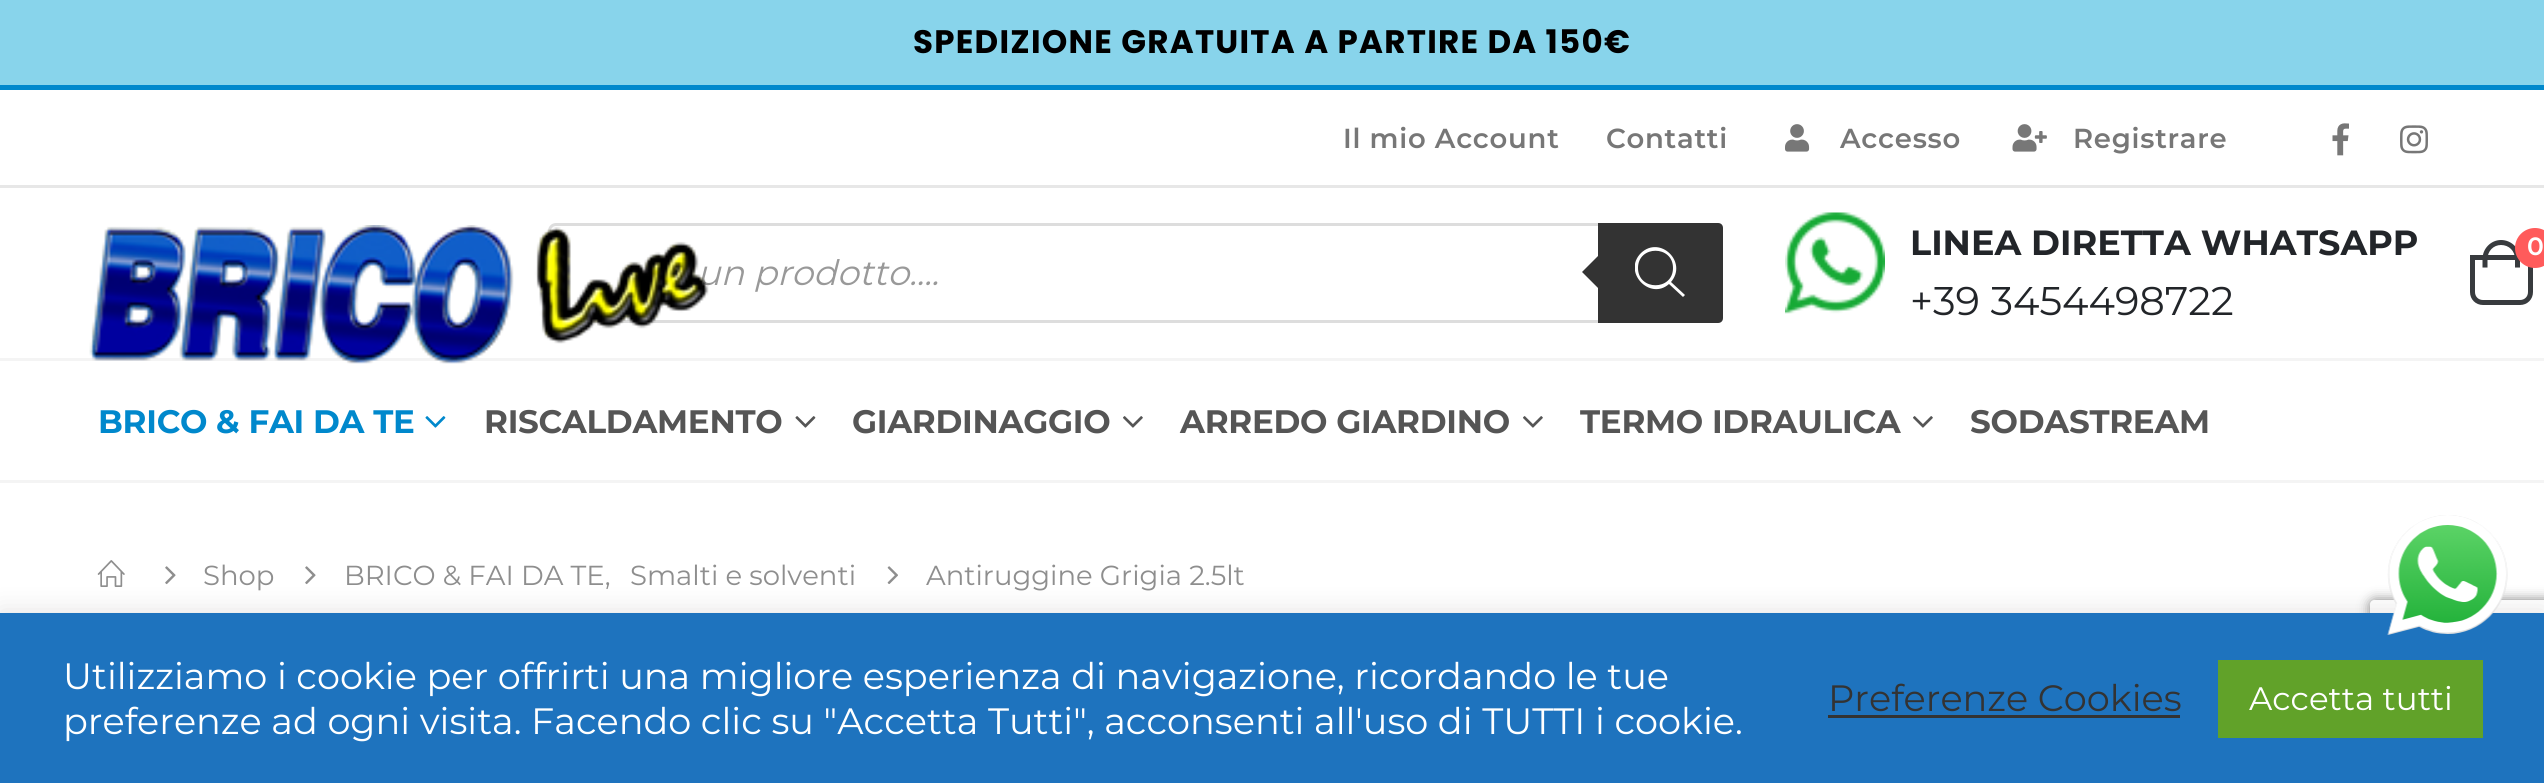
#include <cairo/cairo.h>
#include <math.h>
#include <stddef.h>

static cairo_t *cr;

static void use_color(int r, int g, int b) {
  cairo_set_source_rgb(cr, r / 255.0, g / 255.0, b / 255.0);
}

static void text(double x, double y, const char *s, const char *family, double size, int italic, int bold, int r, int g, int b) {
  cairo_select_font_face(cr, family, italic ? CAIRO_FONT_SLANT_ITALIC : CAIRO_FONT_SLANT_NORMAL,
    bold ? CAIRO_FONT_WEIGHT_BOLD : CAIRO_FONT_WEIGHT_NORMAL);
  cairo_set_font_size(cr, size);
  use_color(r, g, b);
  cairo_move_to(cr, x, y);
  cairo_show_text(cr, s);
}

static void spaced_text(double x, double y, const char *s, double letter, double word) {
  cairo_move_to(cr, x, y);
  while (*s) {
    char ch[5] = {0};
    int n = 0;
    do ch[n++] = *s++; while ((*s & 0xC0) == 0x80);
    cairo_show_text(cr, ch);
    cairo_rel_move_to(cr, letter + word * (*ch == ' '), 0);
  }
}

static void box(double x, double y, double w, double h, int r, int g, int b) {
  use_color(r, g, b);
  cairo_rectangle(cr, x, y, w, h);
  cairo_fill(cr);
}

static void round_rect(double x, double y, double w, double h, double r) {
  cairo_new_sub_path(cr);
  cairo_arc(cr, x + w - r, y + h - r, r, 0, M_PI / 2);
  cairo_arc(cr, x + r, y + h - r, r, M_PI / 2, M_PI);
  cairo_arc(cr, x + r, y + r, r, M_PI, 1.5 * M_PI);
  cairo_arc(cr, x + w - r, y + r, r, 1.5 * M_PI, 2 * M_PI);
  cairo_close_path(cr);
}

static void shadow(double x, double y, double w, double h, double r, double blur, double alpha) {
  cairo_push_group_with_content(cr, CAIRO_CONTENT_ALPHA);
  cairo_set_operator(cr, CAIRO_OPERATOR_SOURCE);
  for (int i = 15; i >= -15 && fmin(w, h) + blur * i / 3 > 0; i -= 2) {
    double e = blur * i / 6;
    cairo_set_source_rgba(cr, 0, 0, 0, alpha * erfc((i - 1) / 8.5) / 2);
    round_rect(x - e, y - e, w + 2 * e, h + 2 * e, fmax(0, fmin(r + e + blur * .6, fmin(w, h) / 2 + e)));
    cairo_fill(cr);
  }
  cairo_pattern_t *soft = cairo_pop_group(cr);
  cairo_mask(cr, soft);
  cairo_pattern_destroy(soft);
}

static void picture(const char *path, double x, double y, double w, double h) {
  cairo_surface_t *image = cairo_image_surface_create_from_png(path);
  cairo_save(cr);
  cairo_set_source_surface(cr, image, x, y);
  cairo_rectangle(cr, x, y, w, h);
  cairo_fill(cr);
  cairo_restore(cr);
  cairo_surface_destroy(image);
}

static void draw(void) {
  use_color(255, 255, 255);
  cairo_paint(cr);
  box(0, 0, 2544, 85, 136, 212, 235);
  box(0, 85, 2544, 5, 0, 136, 204);
  box(0, 480, 2544, 3, 244, 244, 244);
  box(0, 185, 2544, 3, 231, 231, 231);
  picture("img_01.png", 1785, 124, 25, 28);
  picture("img_02.png", 2012, 124, 35, 28);
  picture("img_03.png", 2332, 123, 17, 33);
  picture("img_04.png", 2400, 125, 28, 29);
  round_rect(549.5, 224.5, 1172, 97, 6.5);
  use_color(221, 221, 221);
  cairo_set_line_width(cr, 3);
  cairo_stroke(cr);
  use_color(51, 51, 51);
  cairo_new_path(cr);
  cairo_move_to(cr, 1598, 223);
  cairo_line_to(cr, 1718, 223);
  cairo_curve_to(cr, 1721, 223, 1723, 225, 1723, 228);
  cairo_line_to(cr, 1723, 318);
  cairo_curve_to(cr, 1723, 321, 1721, 323, 1718, 323);
  cairo_line_to(cr, 1598, 323);
  cairo_close_path(cr);
  cairo_fill(cr);
  cairo_new_path(cr);
  cairo_move_to(cr, 1602, 252);
  cairo_line_to(cr, 1602, 292);
  cairo_line_to(cr, 1582, 272);
  cairo_close_path(cr);
  cairo_fill(cr);
  cairo_save(cr);
  cairo_rectangle(cr, 1635, 240, 50, 65);
  cairo_clip(cr);
  use_color(255, 255, 255);
  cairo_new_path(cr);
  cairo_move_to(cr, 1685, 295);
  cairo_line_to(cr, 1671, 282);
  cairo_curve_to(cr, 1688, 262, 1660, 235, 1641, 253);
  cairo_curve_to(cr, 1622, 272, 1650, 301, 1669, 284);
  cairo_line_to(cr, 1683, 297);
  cairo_close_path(cr);
  cairo_move_to(cr, 1638, 268);
  cairo_curve_to(cr, 1638, 245, 1673, 245, 1673, 268);
  cairo_curve_to(cr, 1673, 291, 1638, 291, 1638, 268);
  cairo_close_path(cr);
  cairo_fill(cr);
  cairo_restore(cr);
  picture("img_06.png", 1785, 212, 100, 102);
  cairo_new_path(cr);
  cairo_move_to(cr, 2472.5, 257.5);
  cairo_line_to(cr, 2530.5, 257.5);
  cairo_line_to(cr, 2530.5, 292);
  cairo_curve_to(cr, 2530.5, 298, 2526, 302.5, 2520, 302.5);
  cairo_line_to(cr, 2483, 302.5);
  cairo_curve_to(cr, 2477, 302.5, 2472.5, 298, 2472.5, 292);
  cairo_close_path(cr);
  use_color(56, 59, 62);
  cairo_set_line_width(cr, 5);
  cairo_stroke(cr);
  cairo_set_fill_rule(cr, CAIRO_FILL_RULE_EVEN_ODD);
  cairo_new_path(cr);
  cairo_move_to(cr, 2501, 240);
  cairo_curve_to(cr, 2511.5, 240, 2520, 248.5, 2520, 259);
  cairo_line_to(cr, 2520, 267.5);
  cairo_line_to(cr, 2482.5, 267.5);
  cairo_line_to(cr, 2482.5, 259);
  cairo_curve_to(cr, 2482.5, 248.5, 2491, 240, 2501, 240);
  cairo_close_path(cr);
  cairo_move_to(cr, 2501, 245);
  cairo_curve_to(cr, 2509, 245, 2515, 251, 2515, 259);
  cairo_line_to(cr, 2515, 267.5);
  cairo_line_to(cr, 2487.5, 267.5);
  cairo_line_to(cr, 2487.5, 259);
  cairo_curve_to(cr, 2487.5, 251, 2493.5, 245, 2501, 245);
  cairo_close_path(cr);
  cairo_fill(cr);
  use_color(255, 91, 91);
  cairo_arc(cr, 2535, 248, 20, 0, 2 * M_PI);
  cairo_fill(cr);
  box(0, 358, 2544, 3, 244, 244, 244);
  picture("img_07.png", 425, 416, 21, 12);
  picture("img_08.png", 795, 416, 21, 12);
  picture("img_09.png", 1123, 416, 20, 12);
  picture("img_09.png", 1523, 416, 20, 12);
  picture("img_09.png", 1913, 416, 20, 12);
  picture("img_10.png", 97, 560, 28, 27);
  picture("img_11.png", 165, 566, 11, 19);
  picture("img_11.png", 305, 566, 11, 19);
  picture("img_12.png", 887, 566, 11, 18);
  cairo_save(cr);
  cairo_new_path(cr);
  cairo_move_to(cr, 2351, 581);
  cairo_line_to(cr, 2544, 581);
  cairo_line_to(cr, 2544, 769);
  cairo_line_to(cr, 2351, 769);
  cairo_close_path(cr);
  cairo_move_to(cr, 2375, 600);
  cairo_line_to(cr, 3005, 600);
  cairo_curve_to(cr, 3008, 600, 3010, 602, 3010, 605);
  cairo_line_to(cr, 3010, 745);
  cairo_curve_to(cr, 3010, 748, 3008, 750, 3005, 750);
  cairo_line_to(cr, 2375, 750);
  cairo_curve_to(cr, 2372, 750, 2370, 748, 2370, 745);
  cairo_line_to(cr, 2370, 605);
  cairo_curve_to(cr, 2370, 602, 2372, 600, 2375, 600);
  cairo_close_path(cr);
  cairo_clip(cr);
  use_color(128, 128, 128);
  shadow(2370, 600, 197, 150, 5, 6, 1);
  cairo_restore(cr);
  use_color(172, 171, 171);
  shadow(0, 610, 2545, 173, 0, 12.5, 0.3);
  box(0, 613, 2544, 170, 30, 115, 190);
  picture("img_13.png", 2387, 515, 121, 120);
  box(1828, 715, 352, 3, 51, 51, 51);
  box(2218, 660, 265, 78, 97, 162, 41);
  cairo_select_font_face(cr, "Poppins", CAIRO_FONT_SLANT_NORMAL, CAIRO_FONT_WEIGHT_BOLD);
  cairo_set_font_size(cr, 32.5);
  use_color(0, 0, 0);
  spaced_text(913, 53, "SPEDIZIONE GRATUITA A PARTIRE DA 150€", 1.25, 0);
  cairo_select_font_face(cr, "Montserrat SemiBold", CAIRO_FONT_SLANT_NORMAL, CAIRO_FONT_WEIGHT_NORMAL);
  cairo_set_font_size(cr, 27.5);
  use_color(119, 119, 119);
  spaced_text(1343, 148, "Il mio Account", 0.75, 0);
  spaced_text(1606, 148, "Contatti", 0.75, 0);
  spaced_text(1840, 148, "Accesso", 0.75, 0);
  spaced_text(2073, 148, "Registrare", 0.75, 0);
  text(697, 285, "un prodotto....", "Montserrat", 35, 1, 0, 153, 153, 153);
  picture("img_05.png", 89, 225, 620, 139);
  text(1910, 255, "LINEA DIRETTA WHATSAPP", "Montserrat", 35, 0, 1, 34, 37, 41);
  text(1910, 315, "+39 3454498722", "Montserrat", 40, 0, 0, 34, 37, 41);
  text(2527, 255, "0", "Montserrat SemiBold", 25, 0, 0, 255, 255, 255);
  cairo_select_font_face(cr, "Montserrat", CAIRO_FONT_SLANT_NORMAL, CAIRO_FONT_WEIGHT_BOLD);
  cairo_set_font_size(cr, 32.5);
  use_color(0, 136, 204);
  spaced_text(98, 433, "BRICO & FAI DA TE", -0.25, 0);
  use_color(85, 85, 85);
  spaced_text(484, 433, "RISCALDAMENTO", -0.25, 0);
  spaced_text(852, 433, "GIARDINAGGIO", -0.25, 0);
  spaced_text(1180, 433, "ARREDO GIARDINO", -0.25, 0);
  spaced_text(1580, 433, "TERMO IDRAULICA", -0.25, 0);
  spaced_text(1970, 433, "SODASTREAM", -0.25, 0);
  text(203, 585, "Shop", "Montserrat", 27.5, 0, 0, 142, 142, 142);
  text(344, 585, "BRICO & FAI DA TE,", "Montserrat", 27.5, 0, 0, 142, 142, 142);
  text(630, 585, "Smalti e solventi", "Montserrat", 27.5, 0, 0, 142, 142, 142);
  text(926, 585, "Antiruggine Grigia 2.5lt", "Montserrat", 27.5, 0, 0, 142, 142, 142);
  text(63, 689, "Utilizziamo i cookie per offrirti una migliore esperienza di navigazione, ricordando le tue", "Montserrat", 36.65, 0, 0, 255, 255, 255);
  text(63, 734, "preferenze ad ogni visita. Facendo clic su \"Accetta Tutti\", acconsenti all'uso di TUTTI i cookie.", "Montserrat", 36.65, 0, 0, 255, 255, 255);
  text(1828, 711, "Preferenze Cookies", "Montserrat", 36.65, 0, 0, 51, 51, 51);
  text(2249, 710, "Accetta tutti", "Montserrat", 32.5, 0, 0, 255, 255, 255);
}

int main(void) {
  cairo_surface_t *surface = cairo_image_surface_create(CAIRO_FORMAT_RGB24, 2544, 783);
  cr = cairo_create(surface);
  cairo_font_options_t *options = cairo_font_options_create();
  cairo_font_options_set_hint_metrics(options, CAIRO_HINT_METRICS_OFF);
  cairo_font_options_set_hint_style(options, CAIRO_HINT_STYLE_NONE);
  cairo_set_font_options(cr, options);
  cairo_set_miter_limit(cr, 4);
  draw();
  cairo_surface_write_to_png(surface, "out.png");
  cairo_font_options_destroy(options);
  cairo_destroy(cr);
  cairo_surface_destroy(surface);
  return 0;
}
